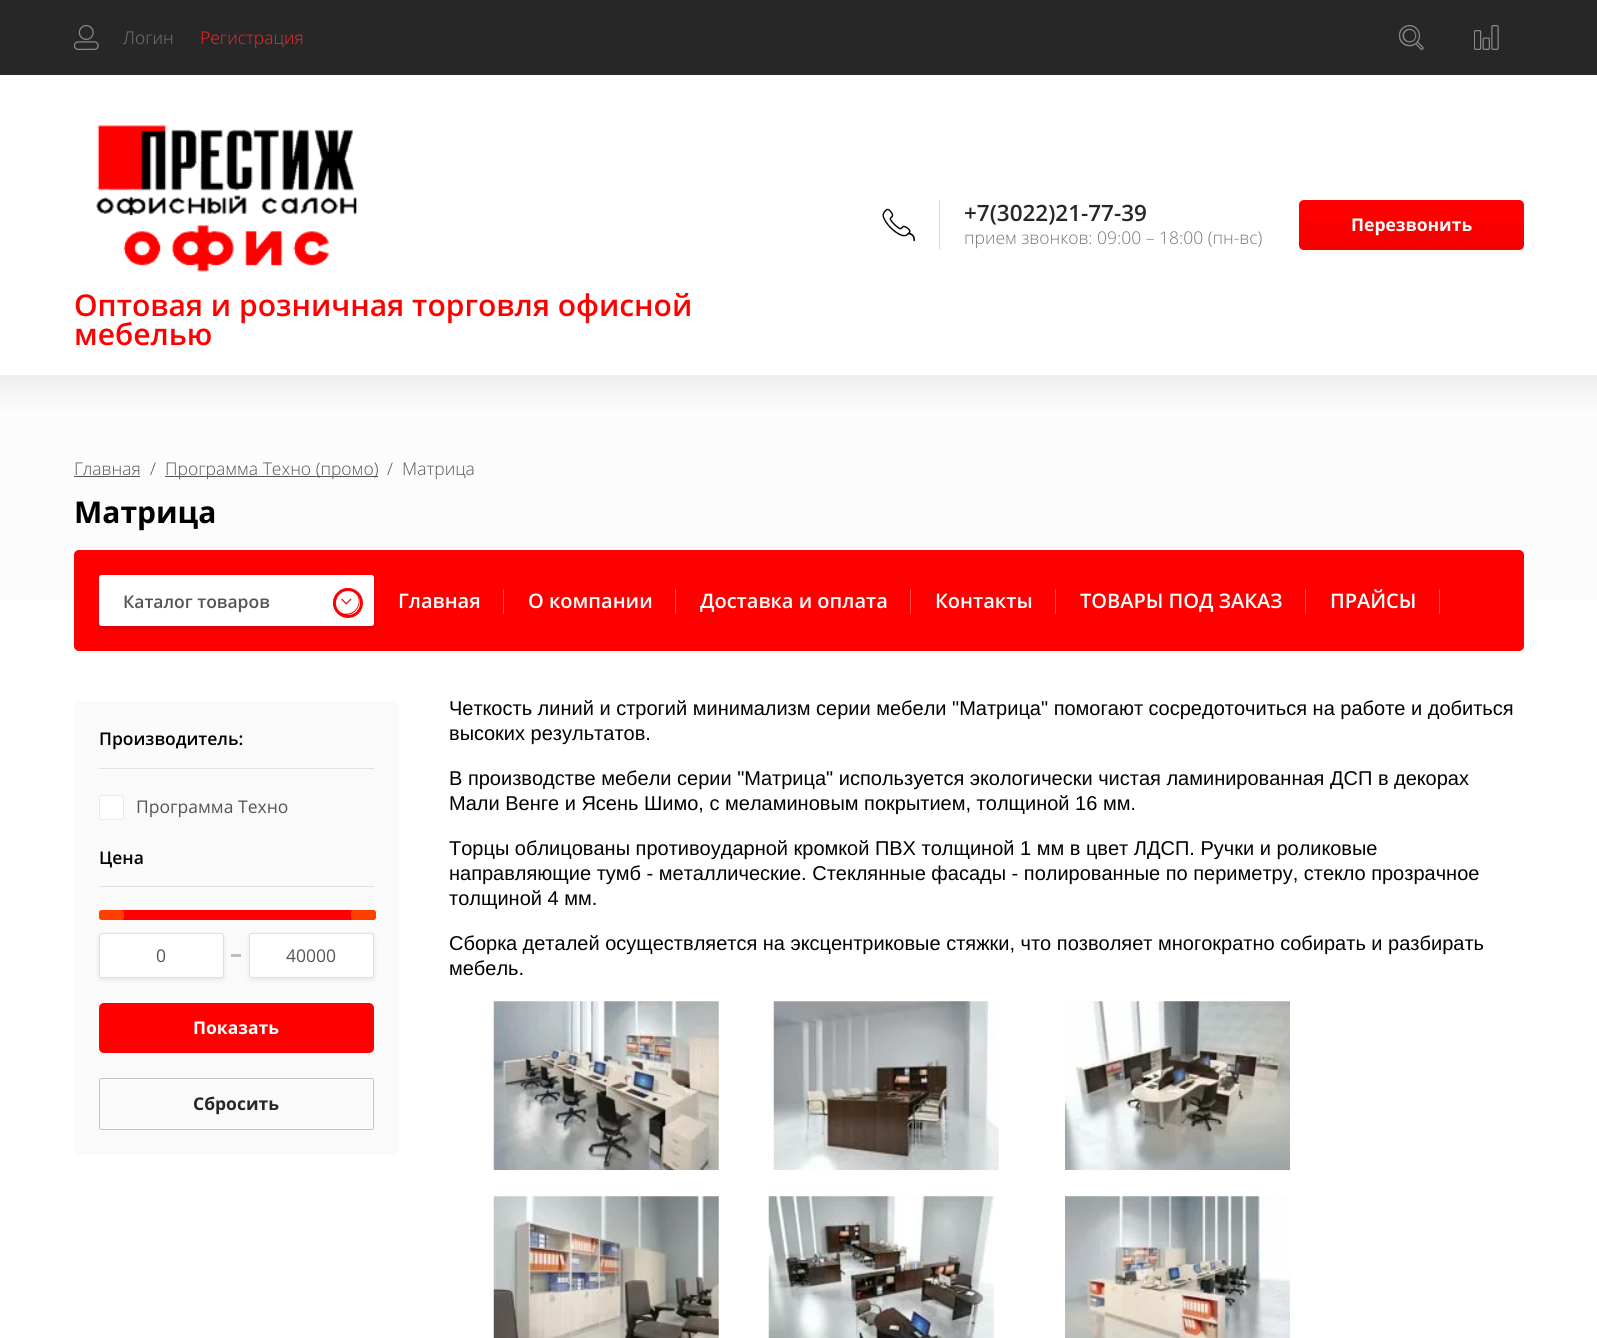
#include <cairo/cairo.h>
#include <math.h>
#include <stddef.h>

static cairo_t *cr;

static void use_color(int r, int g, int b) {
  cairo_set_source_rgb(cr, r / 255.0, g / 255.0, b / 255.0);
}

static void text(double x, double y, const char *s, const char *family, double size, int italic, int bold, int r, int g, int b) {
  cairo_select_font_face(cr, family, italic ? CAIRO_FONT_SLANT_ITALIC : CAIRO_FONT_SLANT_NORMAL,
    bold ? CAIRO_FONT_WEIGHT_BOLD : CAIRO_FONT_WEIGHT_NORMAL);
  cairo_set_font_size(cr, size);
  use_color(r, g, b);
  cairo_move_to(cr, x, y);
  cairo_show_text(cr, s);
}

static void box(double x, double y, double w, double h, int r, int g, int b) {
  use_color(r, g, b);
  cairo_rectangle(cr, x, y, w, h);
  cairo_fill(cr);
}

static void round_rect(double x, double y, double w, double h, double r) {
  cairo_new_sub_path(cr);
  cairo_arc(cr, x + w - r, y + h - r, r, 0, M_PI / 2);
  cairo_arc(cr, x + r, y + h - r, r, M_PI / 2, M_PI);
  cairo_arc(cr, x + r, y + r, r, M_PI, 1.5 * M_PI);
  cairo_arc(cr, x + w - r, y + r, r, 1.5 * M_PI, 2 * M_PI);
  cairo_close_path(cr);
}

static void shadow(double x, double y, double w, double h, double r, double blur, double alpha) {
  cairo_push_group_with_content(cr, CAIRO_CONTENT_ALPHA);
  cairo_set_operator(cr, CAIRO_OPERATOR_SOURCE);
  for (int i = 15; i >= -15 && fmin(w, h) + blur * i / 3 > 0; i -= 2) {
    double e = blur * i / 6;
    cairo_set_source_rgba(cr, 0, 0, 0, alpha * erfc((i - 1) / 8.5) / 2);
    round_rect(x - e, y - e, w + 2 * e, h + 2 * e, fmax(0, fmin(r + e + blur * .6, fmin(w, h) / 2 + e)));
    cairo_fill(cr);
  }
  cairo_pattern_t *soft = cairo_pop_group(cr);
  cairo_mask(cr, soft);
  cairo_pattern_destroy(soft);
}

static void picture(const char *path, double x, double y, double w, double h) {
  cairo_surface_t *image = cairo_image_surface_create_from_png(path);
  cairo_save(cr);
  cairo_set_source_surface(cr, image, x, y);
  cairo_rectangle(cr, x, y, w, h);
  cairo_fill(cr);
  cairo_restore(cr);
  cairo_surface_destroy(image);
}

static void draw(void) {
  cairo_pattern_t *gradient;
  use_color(255, 255, 255);
  cairo_paint(cr);
  box(0, 0, 1597, 75, 39, 39, 39);
  picture("img_01.png", 74, 25, 25, 25);
  picture("img_02.png", 1399, 25, 25, 25);
  picture("img_03.png", 1474, 25, 25, 25);
  picture("img_04.png", 882, 208, 33, 34);
  box(939, 200, 1, 49, 216, 216, 216);
  use_color(255, 0, 0);
  round_rect(1299, 200, 225, 50, 5);
  cairo_fill(cr);
  cairo_set_source_rgba(cr, 1, 0, 0, 0.05);
  cairo_rectangle(cr, 1299, 200, 225, 50);
  cairo_fill(cr);
  gradient = cairo_pattern_create_linear(1411, 200, 1411, 250);
  cairo_pattern_add_color_stop_rgba(gradient, 0.02, 0, 0, 0, 0);
  cairo_pattern_add_color_stop_rgba(gradient, 1, 0, 0, 0, 0.05);
  cairo_set_source(cr, gradient);
  cairo_pattern_destroy(gradient);
  cairo_rectangle(cr, 1299, 222, 225, 28);
  cairo_fill(cr);
  picture("img_05.png", 96, 124, 261, 148);
  gradient = cairo_pattern_create_linear(799, 375, 799, 413);
  cairo_pattern_add_color_stop_rgba(gradient, 0, 0.937, 0.937, 0.937, 1);
  cairo_pattern_add_color_stop_rgba(gradient, 1, 0.988, 0.988, 0.988, 1);
  cairo_set_source(cr, gradient);
  cairo_pattern_destroy(gradient);
  cairo_rectangle(cr, 0, 375, 1597, 38);
  cairo_fill(cr);
  box(0, 413, 1597, 187, 252, 252, 252);
  box(74, 476, 66, 1, 85, 85, 85);
  box(165, 476, 213, 1, 85, 85, 85);
  use_color(255, 0, 0);
  round_rect(74, 550, 1450, 101, 5);
  cairo_fill(cr);
  use_color(0, 0, 0);
  shadow(99, 578, 275, 51, 2.5, 2, 0.15);
  use_color(255, 255, 255);
  round_rect(99, 575, 275, 51, 2.5);
  cairo_fill(cr);
  picture("img_06.png", 333, 588, 27, 27);
  cairo_arc(cr, 348, 603, 13.5, 0, 2 * M_PI);
  use_color(255, 0, 0);
  cairo_set_line_width(cr, 3);
  cairo_stroke(cr);
  box(503, 589, 1, 25, 254, 75, 75);
  box(675, 589, 1, 25, 254, 75, 75);
  box(910, 589, 1, 25, 254, 75, 75);
  box(1055, 589, 1, 25, 254, 75, 75);
  box(1305, 589, 1, 25, 254, 75, 75);
  box(1439, 589, 1, 25, 254, 75, 75);
  use_color(250, 250, 250);
  round_rect(74, 701, 325, 454, 5);
  cairo_fill(cr);
  box(99, 768, 275, 1, 225, 225, 225);
  use_color(255, 255, 255);
  round_rect(99.5, 795.5, 24, 24, 2);
  cairo_fill_preserve(cr);
  use_color(233, 233, 233);
  cairo_set_line_width(cr, 1);
  cairo_stroke(cr);
  box(99, 886, 275, 1, 225, 225, 225);
  box(121, 910, 233, 10, 255, 0, 0);
  use_color(255, 63, 0);
  round_rect(99, 910, 25, 10, 2.5);
  cairo_fill(cr);
  round_rect(351, 910, 25, 10, 2.5);
  cairo_fill(cr);
  use_color(0, 0, 0);
  shadow(99, 935, 125, 45, 2.5, 2.5, 0.08);
  use_color(255, 255, 255);
  round_rect(99.5, 933.5, 124, 44, 2);
  cairo_fill_preserve(cr);
  use_color(224, 224, 224);
  cairo_stroke(cr);
  box(231, 954, 10, 3, 188, 188, 188);
  use_color(0, 0, 0);
  shadow(249, 935, 125, 45, 2.5, 2.5, 0.08);
  use_color(255, 255, 255);
  round_rect(249.5, 933.5, 124, 44, 2);
  cairo_fill_preserve(cr);
  use_color(224, 224, 224);
  cairo_stroke(cr);
  use_color(255, 0, 0);
  round_rect(99, 1003, 275, 50, 5);
  cairo_fill(cr);
  round_rect(99.5, 1078.5, 274, 51, 2);
  use_color(197, 197, 197);
  cairo_stroke(cr);
  picture("img_07.png", 493, 1001, 226, 169);
  picture("img_08.png", 773, 1001, 226, 169);
  picture("img_09.png", 1065, 1001, 225, 169);
  picture("img_10.png", 493, 1196, 226, 142);
  picture("img_11.png", 768, 1196, 226, 142);
  picture("img_12.png", 1065, 1196, 225, 142);
  text(123, 44, "Логин", "Open Sans Light", 17.5, 0, 0, 119, 119, 119);
  text(200, 44, "Регистрация", "Open Sans Light", 17.5, 0, 0, 255, 35, 35);
  text(964, 221, "+7(3022)21-77-39", "Open Sans SemiBold", 22.5, 0, 0, 39, 39, 39);
  text(964, 244, "прием звонков: 09:00 – 18:00 (пн-вс)", "Open Sans Light", 17.5, 0, 0, 119, 119, 119);
  text(1351, 231, "Перезвонить", "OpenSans", 17.5, 0, 1, 255, 255, 255);
  text(74, 316, "Оптовая и розничная торговля офисной", "Open Sans SemiBold", 30, 0, 0, 255, 0, 0);
  text(74, 345, "мебелью", "Open Sans SemiBold", 30, 0, 0, 255, 0, 0);
  text(74, 475, "Главная", "Open Sans Light", 17.5, 0, 0, 85, 85, 85);
  text(150, 475, "/", "Open Sans Light", 17.5, 0, 0, 85, 85, 85);
  text(165, 475, "Программа Техно (промо)", "Open Sans Light", 17.5, 0, 0, 85, 85, 85);
  text(387, 475, "/  Матрица", "Open Sans Light", 17.5, 0, 0, 85, 85, 85);
  text(74, 523, "Матрица", "OpenSans", 30, 0, 1, 0, 0, 0);
  text(123, 608, "Каталог товаров", "Open Sans SemiBold", 17.5, 0, 0, 85, 85, 85);
  text(398, 608, "Главная", "Open Sans SemiBold", 20, 0, 0, 255, 255, 255);
  text(528, 608, "О компании", "Open Sans SemiBold", 20, 0, 0, 255, 255, 255);
  text(700, 608, "Доставка и оплата", "Open Sans SemiBold", 20, 0, 0, 255, 255, 255);
  text(935, 608, "Контакты", "Open Sans SemiBold", 20, 0, 0, 255, 255, 255);
  text(1080, 608, "ТОВАРЫ ПОД ЗАКАЗ", "Open Sans SemiBold", 20, 0, 0, 255, 255, 255);
  text(1330, 608, "ПРАЙСЫ", "Open Sans SemiBold", 20, 0, 0, 255, 255, 255);
  text(99, 745, "Производитель:", "Open Sans SemiBold", 17.5, 0, 0, 0, 0, 0);
  text(136, 813, "Программа Техно", "OpenSans", 17.5, 0, 0, 85, 85, 85);
  text(99, 864, "Цена", "Open Sans SemiBold", 17.5, 0, 0, 0, 0, 0);
  text(156, 962, "0", "OpenSans", 17.5, 0, 0, 85, 85, 85);
  text(286, 962, "40000", "OpenSans", 17.5, 0, 0, 85, 85, 85);
  text(193, 1034, "Показать", "OpenSans", 17.5, 0, 1, 255, 255, 255);
  text(193, 1110, "Сбросить", "OpenSans", 17.5, 0, 1, 39, 39, 39);
  text(449, 715, "Четкость линий и строгий минимализм серии мебели \"Матрица\" помогают сосредоточиться на работе и добиться", "Liberation Sans", 20, 0, 0, 0, 0, 0);
  text(449, 740, "высоких результатов.", "Liberation Sans", 20, 0, 0, 0, 0, 0);
  text(449, 785, "В производстве мебели серии \"Матрица\" используется экологически чистая ламинированная ДСП в декорах", "Liberation Sans", 20, 0, 0, 0, 0, 0);
  text(449, 810, "Мали Венге и Ясень Шимо, с меламиновым покрытием, толщиной 16 мм.", "Liberation Sans", 20, 0, 0, 0, 0, 0);
  text(449, 855, "Торцы облицованы противоударной кромкой ПВХ толщиной 1 мм в цвет ЛДСП. Ручки и роликовые", "Liberation Sans", 20, 0, 0, 0, 0, 0);
  text(449, 880, "направляющие тумб - металлические. Стеклянные фасады - полированные по периметру, стекло прозрачное", "Liberation Sans", 20, 0, 0, 0, 0, 0);
  text(449, 905, "толщиной 4 мм.", "Liberation Sans", 20, 0, 0, 0, 0, 0);
  text(449, 950, "Сборка деталей осуществляется на эксцентриковые стяжки, что позволяет многократно собирать и разбирать", "Liberation Sans", 20, 0, 0, 0, 0, 0);
  text(449, 975, "мебель.", "Liberation Sans", 20, 0, 0, 0, 0, 0);
}

int main(void) {
  cairo_surface_t *surface = cairo_image_surface_create(CAIRO_FORMAT_RGB24, 1597, 1338);
  cr = cairo_create(surface);
  cairo_font_options_t *options = cairo_font_options_create();
  cairo_font_options_set_hint_metrics(options, CAIRO_HINT_METRICS_OFF);
  cairo_font_options_set_hint_style(options, CAIRO_HINT_STYLE_NONE);
  cairo_set_font_options(cr, options);
  cairo_set_miter_limit(cr, 4);
  draw();
  cairo_surface_write_to_png(surface, "out.png");
  cairo_font_options_destroy(options);
  cairo_destroy(cr);
  cairo_surface_destroy(surface);
  return 0;
}
